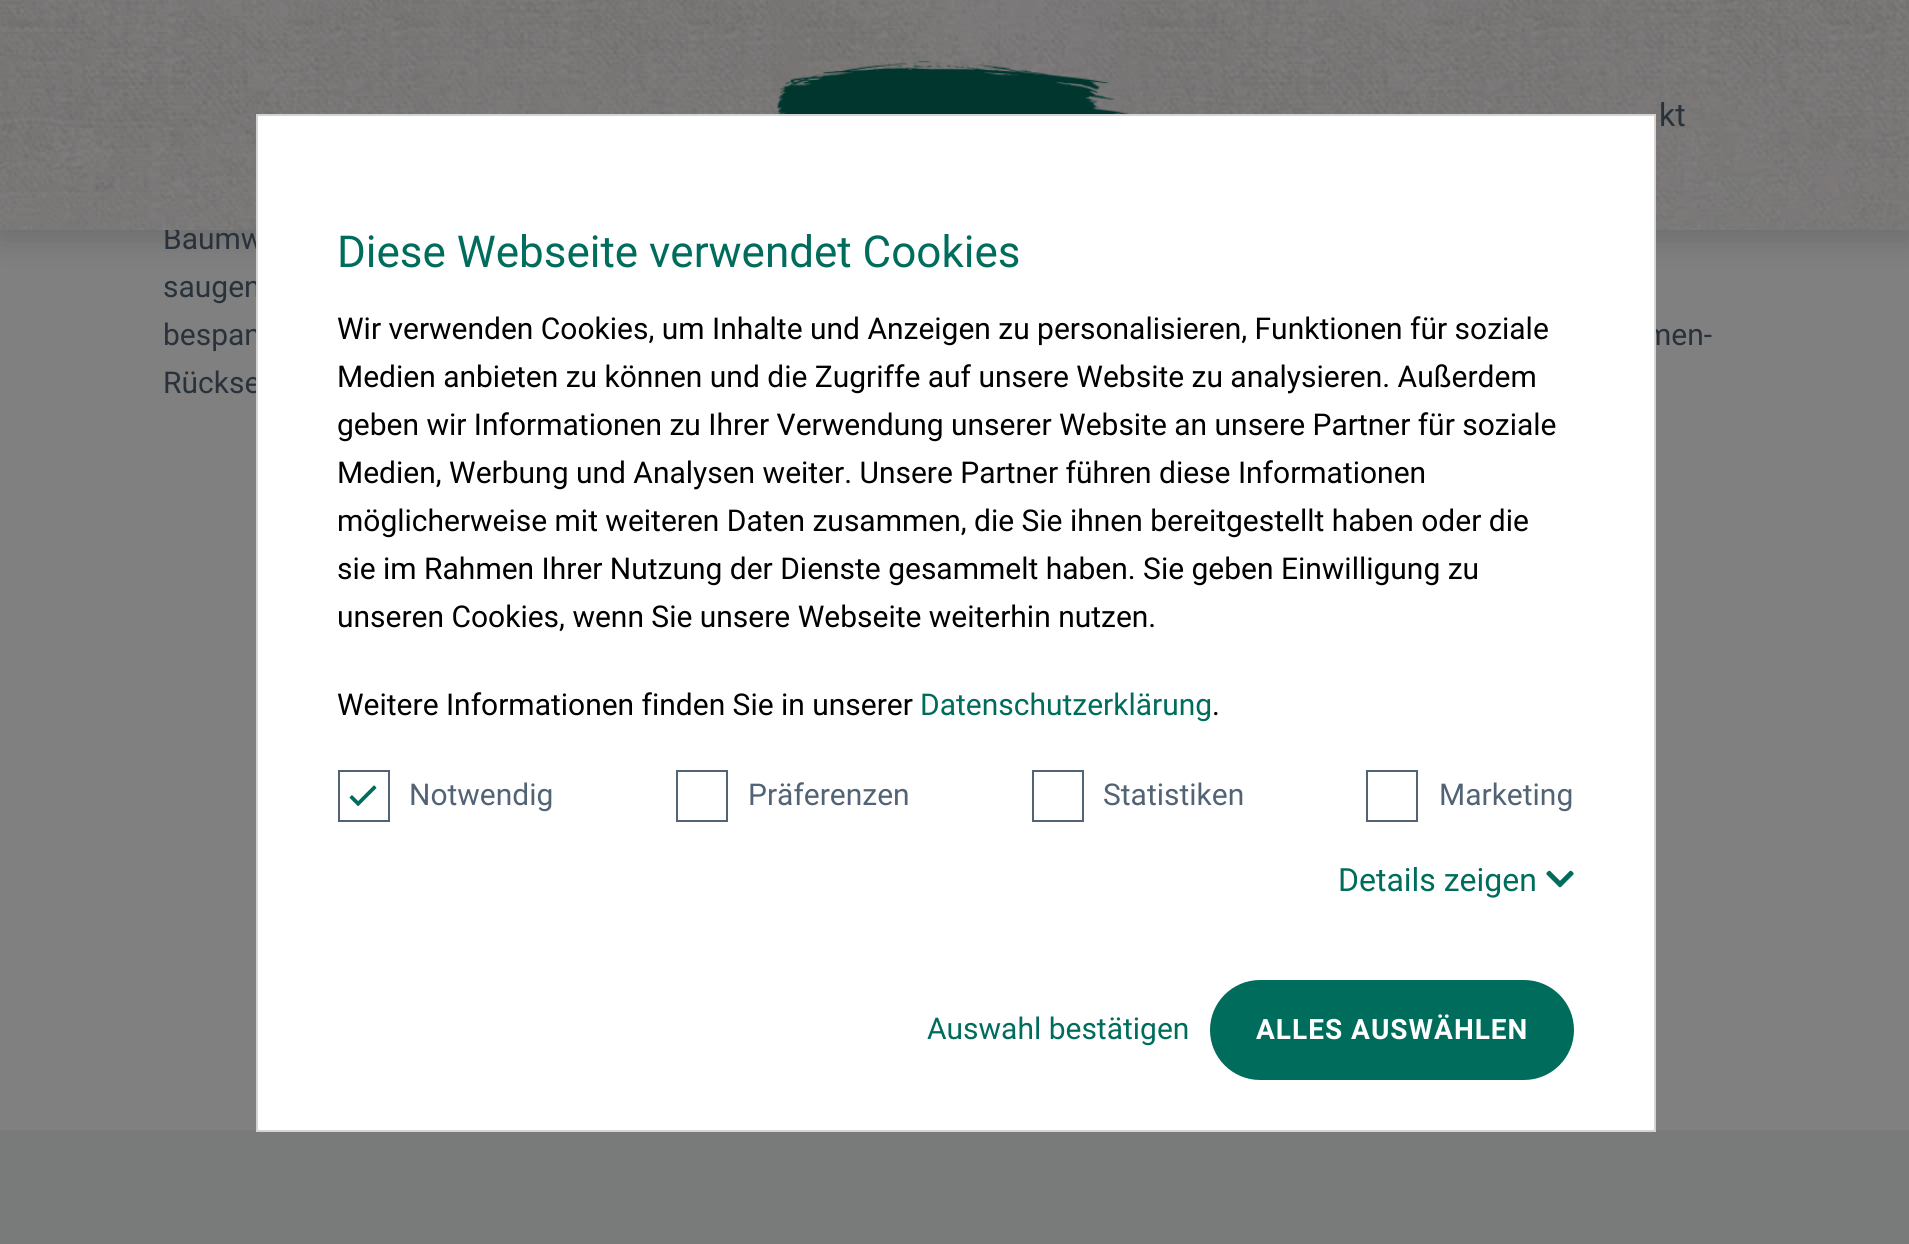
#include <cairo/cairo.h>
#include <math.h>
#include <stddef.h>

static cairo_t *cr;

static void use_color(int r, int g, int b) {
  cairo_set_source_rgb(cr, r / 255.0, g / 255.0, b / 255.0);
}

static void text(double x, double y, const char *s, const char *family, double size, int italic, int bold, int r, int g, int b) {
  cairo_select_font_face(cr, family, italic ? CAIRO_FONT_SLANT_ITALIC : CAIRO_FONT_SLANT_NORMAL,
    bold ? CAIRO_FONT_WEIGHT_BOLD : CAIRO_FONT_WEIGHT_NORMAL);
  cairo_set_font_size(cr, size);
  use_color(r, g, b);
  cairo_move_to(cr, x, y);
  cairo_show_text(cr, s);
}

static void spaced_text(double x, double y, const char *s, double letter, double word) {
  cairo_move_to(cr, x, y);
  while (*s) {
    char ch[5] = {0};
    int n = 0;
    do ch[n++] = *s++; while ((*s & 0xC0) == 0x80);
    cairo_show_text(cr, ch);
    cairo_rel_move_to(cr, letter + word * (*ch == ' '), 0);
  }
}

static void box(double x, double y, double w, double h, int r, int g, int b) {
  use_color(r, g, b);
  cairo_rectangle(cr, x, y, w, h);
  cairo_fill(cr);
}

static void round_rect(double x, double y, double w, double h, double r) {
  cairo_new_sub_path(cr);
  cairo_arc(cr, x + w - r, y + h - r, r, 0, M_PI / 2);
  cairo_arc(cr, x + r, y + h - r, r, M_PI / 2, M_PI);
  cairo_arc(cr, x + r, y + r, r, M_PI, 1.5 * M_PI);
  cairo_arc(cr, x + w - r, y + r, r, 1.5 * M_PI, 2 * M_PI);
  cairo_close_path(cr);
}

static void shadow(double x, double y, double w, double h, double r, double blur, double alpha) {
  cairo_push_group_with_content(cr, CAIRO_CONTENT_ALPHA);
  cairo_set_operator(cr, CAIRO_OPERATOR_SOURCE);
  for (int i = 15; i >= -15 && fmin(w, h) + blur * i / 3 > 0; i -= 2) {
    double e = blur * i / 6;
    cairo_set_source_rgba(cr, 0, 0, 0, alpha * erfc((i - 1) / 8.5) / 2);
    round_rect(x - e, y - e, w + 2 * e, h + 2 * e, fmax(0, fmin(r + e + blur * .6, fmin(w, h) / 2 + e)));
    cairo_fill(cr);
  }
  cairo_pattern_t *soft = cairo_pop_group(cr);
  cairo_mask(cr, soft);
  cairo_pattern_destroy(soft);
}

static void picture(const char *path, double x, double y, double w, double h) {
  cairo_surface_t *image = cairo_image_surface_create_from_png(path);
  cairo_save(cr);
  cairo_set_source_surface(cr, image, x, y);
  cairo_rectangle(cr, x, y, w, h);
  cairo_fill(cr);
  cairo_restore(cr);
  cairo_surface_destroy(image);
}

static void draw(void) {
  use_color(128, 128, 128);
  cairo_paint(cr);
  use_color(0, 0, 0);
  shadow(0, 10, 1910, 230, 0, 15, 0.15);
  box(0, 1130, 1909, 114, 121, 122, 122);
  text(163, 249, "Baumw", "Roboto", 30, 0, 0, 41, 50, 59);
  picture("img_01.png", 0, 0, 1909, 230);
  text(1659, 126, "kt", "Roboto", 32, 0, 0, 41, 50, 59);
  picture("img_02.png", 776, 60, 355, 54);
  text(163, 297, "saugen", "Roboto", 30, 0, 0, 41, 50, 59);
  text(163, 345, "bespan", "Roboto", 30, 0, 0, 41, 50, 59);
  text(1645, 345, "men-", "Roboto", 30, 0, 0, 41, 50, 59);
  text(163, 393, "Rückse", "Roboto", 30, 0, 0, 41, 50, 59);
  use_color(255, 255, 255);
  cairo_rectangle(cr, 257, 115, 1398, 1016);
  cairo_fill_preserve(cr);
  use_color(212, 212, 212);
  cairo_stroke(cr);
  text(337, 267, "Diese Webseite verwendet Cookies", "Roboto", 44, 0, 0, 0, 109, 92);
  text(337, 339, "Wir verwenden Cookies, um Inhalte und Anzeigen zu personalisieren, Funktionen für soziale", "Roboto", 30, 0, 0, 0, 0, 0);
  text(337, 387, "Medien anbieten zu können und die Zugriffe auf unsere Website zu analysieren. Außerdem", "Roboto", 30, 0, 0, 0, 0, 0);
  text(337, 435, "geben wir Informationen zu Ihrer Verwendung unserer Website an unsere Partner für soziale", "Roboto", 30, 0, 0, 0, 0, 0);
  text(337, 483, "Medien, Werbung und Analysen weiter. Unsere Partner führen diese Informationen", "Roboto", 30, 0, 0, 0, 0, 0);
  text(337, 531, "möglicherweise mit weiteren Daten zusammen, die Sie ihnen bereitgestellt haben oder die", "Roboto", 30, 0, 0, 0, 0, 0);
  text(337, 579, "sie im Rahmen Ihrer Nutzung der Dienste gesammelt haben. Sie geben Einwilligung zu", "Roboto", 30, 0, 0, 0, 0, 0);
  text(337, 627, "unseren Cookies, wenn Sie unsere Webseite weiterhin nutzen.", "Roboto", 30, 0, 0, 0, 0, 0);
  text(337, 715, "Weitere Informationen finden Sie in unserer", "Roboto", 30, 0, 0, 0, 0, 0);
  text(920, 715, "Datenschutzerklärung", "Roboto", 30, 0, 0, 0, 109, 92);
  text(1212, 715, ".", "Roboto", 30, 0, 0, 0, 0, 0);
  cairo_rectangle(cr, 339, 771, 50, 50);
  use_color(82, 99, 117);
  cairo_stroke(cr);
  picture("img_03.png", 349, 785, 28, 22);
  text(409, 805, "Notwendig", "Roboto", 30, 0, 0, 82, 99, 117);
  cairo_rectangle(cr, 677, 771, 50, 50);
  cairo_stroke(cr);
  text(748, 805, "Präferenzen", "Roboto", 30, 0, 0, 82, 99, 117);
  cairo_rectangle(cr, 1033, 771, 50, 50);
  cairo_stroke(cr);
  text(1103, 805, "Statistiken", "Roboto", 30, 0, 0, 82, 99, 117);
  cairo_rectangle(cr, 1367, 771, 50, 50);
  cairo_stroke(cr);
  text(1439, 805, "Marketing", "Roboto", 30, 0, 0, 82, 99, 117);
  text(1338, 891, "Details zeigen", "Roboto", 32, 0, 0, 0, 109, 92);
  picture("img_04.png", 1546, 870, 28, 18);
  text(927, 1039, "Auswahl bestätigen", "Roboto", 30, 0, 0, 0, 109, 92);
  round_rect(1210, 980, 364, 100, 50);
  cairo_fill(cr);
  cairo_select_font_face(cr, "Roboto", CAIRO_FONT_SLANT_NORMAL, CAIRO_FONT_WEIGHT_BOLD);
  cairo_set_font_size(cr, 28);
  use_color(255, 255, 255);
  spaced_text(1256, 1039, "ALLES AUSWÄHLEN", 1, 0);
}

int main(void) {
  cairo_surface_t *surface = cairo_image_surface_create(CAIRO_FORMAT_RGB24, 1909, 1244);
  cr = cairo_create(surface);
  cairo_font_options_t *options = cairo_font_options_create();
  cairo_font_options_set_hint_metrics(options, CAIRO_HINT_METRICS_OFF);
  cairo_font_options_set_hint_style(options, CAIRO_HINT_STYLE_NONE);
  cairo_set_font_options(cr, options);
  cairo_set_miter_limit(cr, 4);
  draw();
  cairo_surface_write_to_png(surface, "out.png");
  cairo_font_options_destroy(options);
  cairo_destroy(cr);
  cairo_surface_destroy(surface);
  return 0;
}
